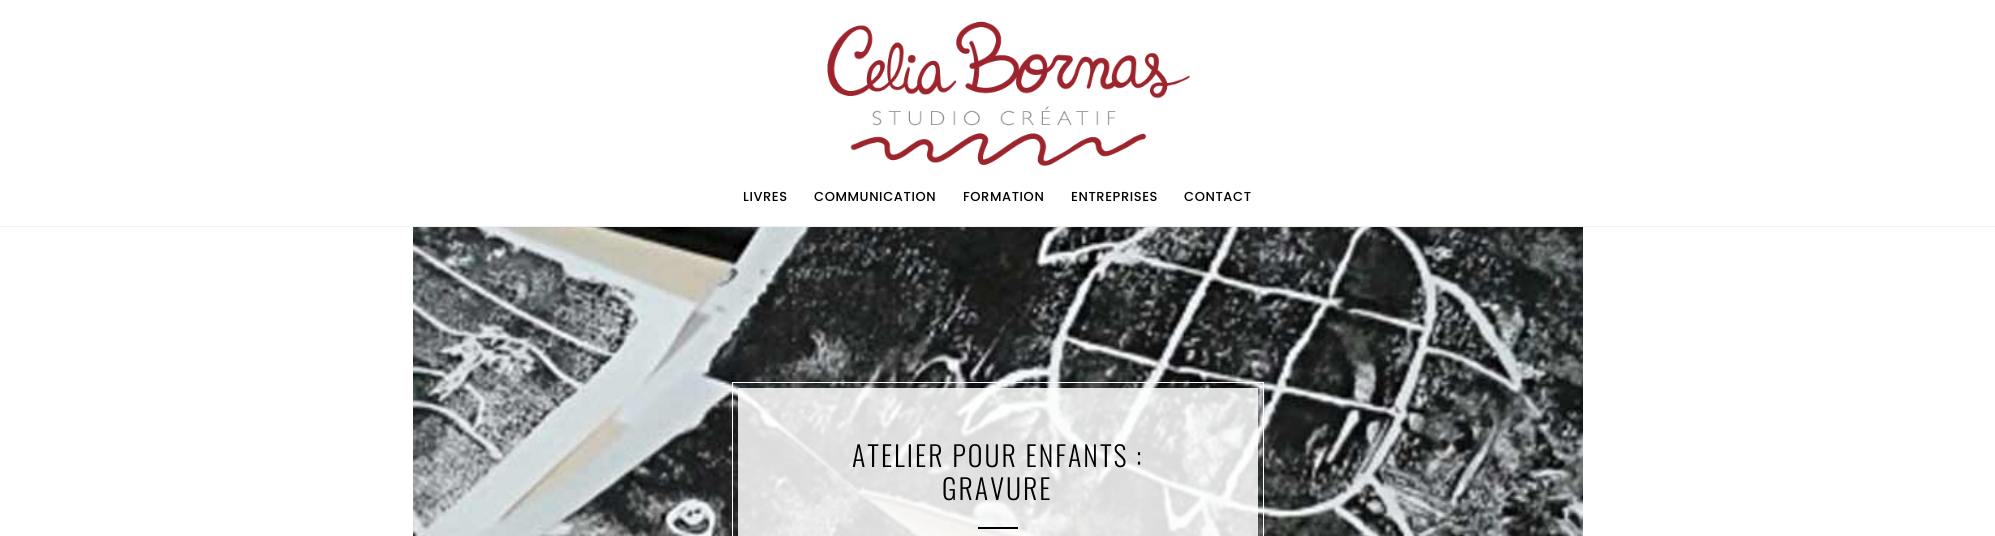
#include <cairo/cairo.h>
#include <math.h>
#include <stddef.h>

static cairo_t *cr;

static void use_color(int r, int g, int b) {
  cairo_set_source_rgb(cr, r / 255.0, g / 255.0, b / 255.0);
}

static void spaced_text(double x, double y, const char *s, double letter, double word) {
  cairo_move_to(cr, x, y);
  while (*s) {
    char ch[5] = {0};
    int n = 0;
    do ch[n++] = *s++; while ((*s & 0xC0) == 0x80);
    cairo_show_text(cr, ch);
    cairo_rel_move_to(cr, letter + word * (*ch == ' '), 0);
  }
}

static void box(double x, double y, double w, double h, int r, int g, int b) {
  use_color(r, g, b);
  cairo_rectangle(cr, x, y, w, h);
  cairo_fill(cr);
}

static void picture(const char *path, double x, double y, double w, double h) {
  cairo_surface_t *image = cairo_image_surface_create_from_png(path);
  cairo_save(cr);
  cairo_set_source_surface(cr, image, x, y);
  cairo_rectangle(cr, x, y, w, h);
  cairo_fill(cr);
  cairo_restore(cr);
  cairo_surface_destroy(image);
}

static void draw(void) {
  use_color(255, 255, 255);
  cairo_paint(cr);
  box(0, 226, 1995, 1, 241, 241, 241);
  picture("img_01.png", 827, 21, 363, 145);
  picture("img_02.png", 413, 227, 1170, 309);
  cairo_set_source_rgba(cr, 1, 1, 1, 0.85);
  cairo_rectangle(cr, 738, 388, 520, 148);
  cairo_fill(cr);
  box(978, 527, 40, 2, 0, 0, 0);
  cairo_rectangle(cr, 732.5, 382.5, 531, 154);
  use_color(255, 255, 255);
  cairo_set_line_width(cr, 1);
  cairo_stroke(cr);
  cairo_select_font_face(cr, "Poppins Medium", CAIRO_FONT_SLANT_NORMAL, CAIRO_FONT_WEIGHT_NORMAL);
  cairo_set_font_size(cr, 13);
  use_color(0, 0, 0);
  spaced_text(743, 201, "LIVRES", 0.6, 0);
  spaced_text(814, 201, "COMMUNICATION", 0.6, 0);
  spaced_text(963, 201, "FORMATION", 0.6, 0);
  spaced_text(1071, 201, "ENTREPRISES", 0.6, 0);
  spaced_text(1184, 201, "CONTACT", 0.6, 0);
  cairo_select_font_face(cr, "Oswald Light", CAIRO_FONT_SLANT_NORMAL, CAIRO_FONT_WEIGHT_NORMAL);
  cairo_set_font_size(cr, 28);
  spaced_text(852, 467, "ATELIER POUR ENFANTS :", 2, 0);
  spaced_text(942, 500, "GRAVURE", 2, 0);
}

int main(void) {
  cairo_surface_t *surface = cairo_image_surface_create(CAIRO_FORMAT_RGB24, 1995, 536);
  cr = cairo_create(surface);
  cairo_font_options_t *options = cairo_font_options_create();
  cairo_font_options_set_hint_metrics(options, CAIRO_HINT_METRICS_OFF);
  cairo_font_options_set_hint_style(options, CAIRO_HINT_STYLE_NONE);
  cairo_set_font_options(cr, options);
  cairo_set_miter_limit(cr, 4);
  draw();
  cairo_surface_write_to_png(surface, "out.png");
  cairo_font_options_destroy(options);
  cairo_destroy(cr);
  cairo_surface_destroy(surface);
  return 0;
}
